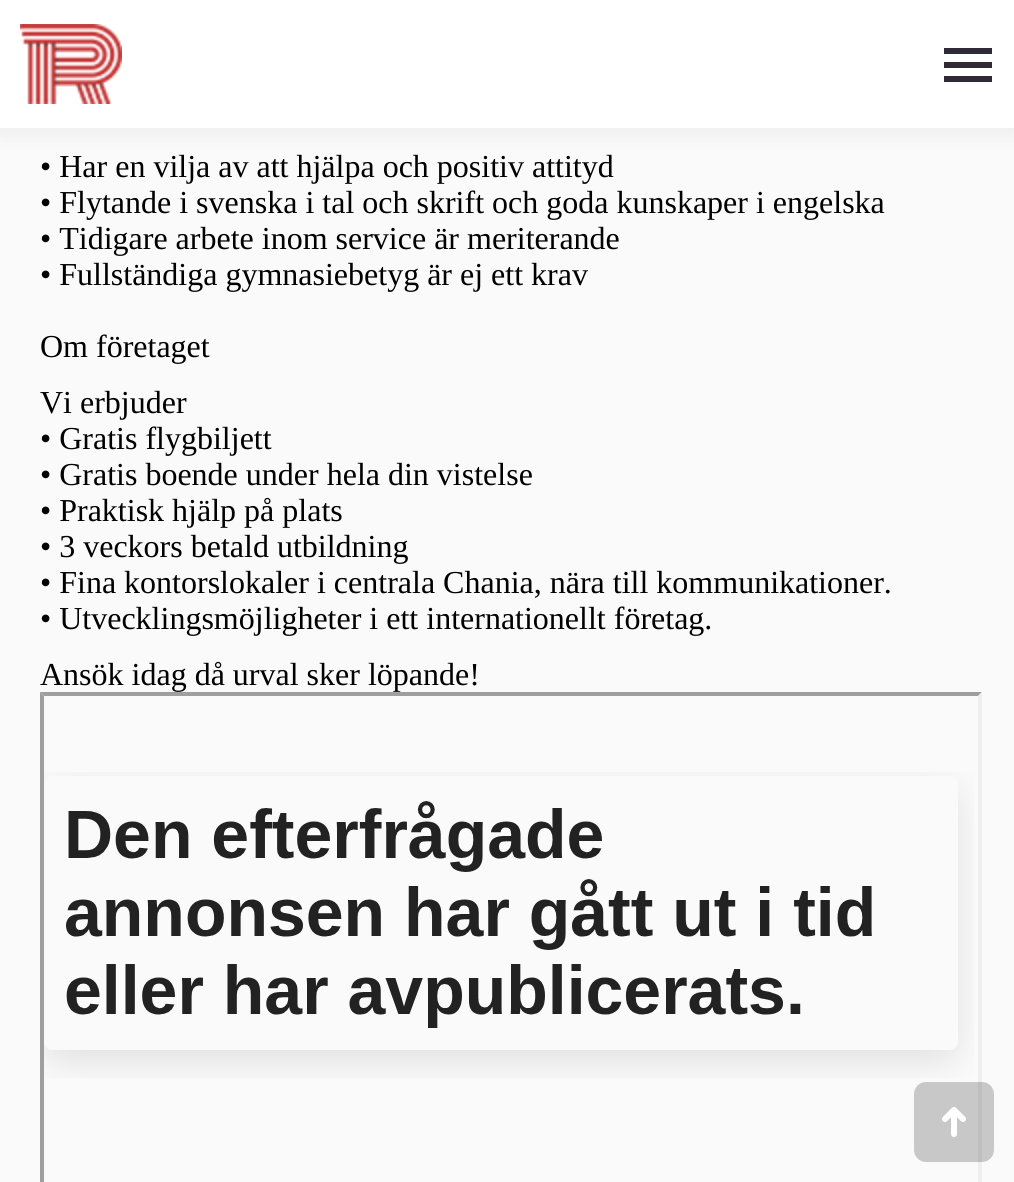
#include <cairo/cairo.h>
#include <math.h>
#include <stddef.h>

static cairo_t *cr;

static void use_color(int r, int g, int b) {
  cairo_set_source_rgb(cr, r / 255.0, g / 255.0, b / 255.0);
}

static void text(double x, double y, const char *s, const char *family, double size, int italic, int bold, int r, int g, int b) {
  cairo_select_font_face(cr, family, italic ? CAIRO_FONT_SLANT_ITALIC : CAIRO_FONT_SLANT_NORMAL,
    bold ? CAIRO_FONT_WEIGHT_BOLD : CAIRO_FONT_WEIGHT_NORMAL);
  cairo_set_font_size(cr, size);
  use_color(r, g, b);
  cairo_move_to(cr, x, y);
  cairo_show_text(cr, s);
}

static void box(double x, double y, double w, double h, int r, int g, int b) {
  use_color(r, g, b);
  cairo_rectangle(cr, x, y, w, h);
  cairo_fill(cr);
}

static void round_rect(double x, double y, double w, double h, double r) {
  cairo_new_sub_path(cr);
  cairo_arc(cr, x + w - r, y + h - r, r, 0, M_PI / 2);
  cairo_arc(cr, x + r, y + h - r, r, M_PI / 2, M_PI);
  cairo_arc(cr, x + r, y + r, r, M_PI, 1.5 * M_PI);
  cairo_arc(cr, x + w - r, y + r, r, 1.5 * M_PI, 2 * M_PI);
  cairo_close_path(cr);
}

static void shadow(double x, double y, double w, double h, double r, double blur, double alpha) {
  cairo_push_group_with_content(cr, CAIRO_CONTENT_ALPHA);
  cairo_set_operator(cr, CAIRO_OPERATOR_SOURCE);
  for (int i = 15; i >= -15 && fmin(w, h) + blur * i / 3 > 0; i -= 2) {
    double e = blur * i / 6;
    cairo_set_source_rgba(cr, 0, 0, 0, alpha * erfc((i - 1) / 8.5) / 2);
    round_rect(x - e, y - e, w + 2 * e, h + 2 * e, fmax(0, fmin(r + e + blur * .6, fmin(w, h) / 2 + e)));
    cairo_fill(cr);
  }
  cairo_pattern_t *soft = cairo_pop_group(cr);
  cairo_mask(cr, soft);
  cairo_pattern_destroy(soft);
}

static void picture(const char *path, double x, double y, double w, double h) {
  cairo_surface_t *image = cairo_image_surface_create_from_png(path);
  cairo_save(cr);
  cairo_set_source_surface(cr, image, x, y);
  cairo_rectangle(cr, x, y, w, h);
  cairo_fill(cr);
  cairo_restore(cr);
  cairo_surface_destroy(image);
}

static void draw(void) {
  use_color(251, 250, 250);
  cairo_paint(cr);
  use_color(0, 0, 0);
  shadow(-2, -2, 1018, 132, 0, 15, 0.07);
  box(0, 0, 1014, 128, 255, 255, 255);
  picture("img_01.png", 20, 24, 102, 80);
  box(944, 48, 48, 6, 46, 43, 54);
  box(944, 62, 48, 6, 46, 43, 54);
  box(944, 76, 48, 6, 46, 43, 54);
  use_color(159, 159, 159);
  cairo_new_path(cr);
  cairo_move_to(cr, 40, 692);
  cairo_line_to(cr, 982, 692);
  cairo_line_to(cr, 978, 696);
  cairo_line_to(cr, 44, 696);
  cairo_close_path(cr);
  cairo_fill(cr);
  cairo_new_path(cr);
  cairo_move_to(cr, 40, 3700);
  cairo_line_to(cr, 40, 692);
  cairo_line_to(cr, 44, 696);
  cairo_line_to(cr, 44, 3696);
  cairo_close_path(cr);
  cairo_fill(cr);
  picture("img_02.png", 44, 772, 930, 306);
  use_color(238, 238, 238);
  cairo_new_path(cr);
  cairo_move_to(cr, 982, 692);
  cairo_line_to(cr, 982, 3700);
  cairo_line_to(cr, 978, 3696);
  cairo_line_to(cr, 978, 696);
  cairo_close_path(cr);
  cairo_fill(cr);
  cairo_set_source_rgba(cr, 0, 0, 0, 0.2);
  round_rect(914, 1082, 80, 80, 12);
  cairo_fill(cr);
  picture("img_03.png", 942, 1107, 24, 30);
  text(40, 177, "• Har en vilja av att hjälpa och positiv attityd", "Liberation Serif", 32, 0, 0, 0, 0, 0);
  text(40, 213, "• Flytande i svenska i tal och skrift och goda kunskaper i engelska", "Liberation Serif", 32, 0, 0, 0, 0, 0);
  text(40, 249, "• Tidigare arbete inom service är meriterande", "Liberation Serif", 32, 0, 0, 0, 0, 0);
  text(40, 285, "• Fullständiga gymnasiebetyg är ej ett krav", "Liberation Serif", 32, 0, 0, 0, 0, 0);
  text(40, 357, "Om företaget", "Liberation Serif", 32, 0, 0, 0, 0, 0);
  text(40, 413, "Vi erbjuder", "Liberation Serif", 32, 0, 0, 0, 0, 0);
  text(40, 449, "• Gratis flygbiljett", "Liberation Serif", 32, 0, 0, 0, 0, 0);
  text(40, 485, "• Gratis boende under hela din vistelse", "Liberation Serif", 32, 0, 0, 0, 0, 0);
  text(40, 521, "• Praktisk hjälp på plats", "Liberation Serif", 32, 0, 0, 0, 0, 0);
  text(40, 557, "• 3 veckors betald utbildning", "Liberation Serif", 32, 0, 0, 0, 0, 0);
  text(40, 593, "• Fina kontorslokaler i centrala Chania, nära till kommunikationer.", "Liberation Serif", 32, 0, 0, 0, 0, 0);
  text(40, 629, "• Utvecklingsmöjligheter i ett internationellt företag.", "Liberation Serif", 32, 0, 0, 0, 0, 0);
  text(40, 685, "Ansök idag då urval sker löpande!", "Liberation Serif", 32, 0, 0, 0, 0, 0);
}

int main(void) {
  cairo_surface_t *surface = cairo_image_surface_create(CAIRO_FORMAT_RGB24, 1014, 1182);
  cr = cairo_create(surface);
  cairo_font_options_t *options = cairo_font_options_create();
  cairo_font_options_set_hint_metrics(options, CAIRO_HINT_METRICS_OFF);
  cairo_font_options_set_hint_style(options, CAIRO_HINT_STYLE_NONE);
  cairo_set_font_options(cr, options);
  cairo_set_miter_limit(cr, 4);
  draw();
  cairo_surface_write_to_png(surface, "out.png");
  cairo_font_options_destroy(options);
  cairo_destroy(cr);
  cairo_surface_destroy(surface);
  return 0;
}
